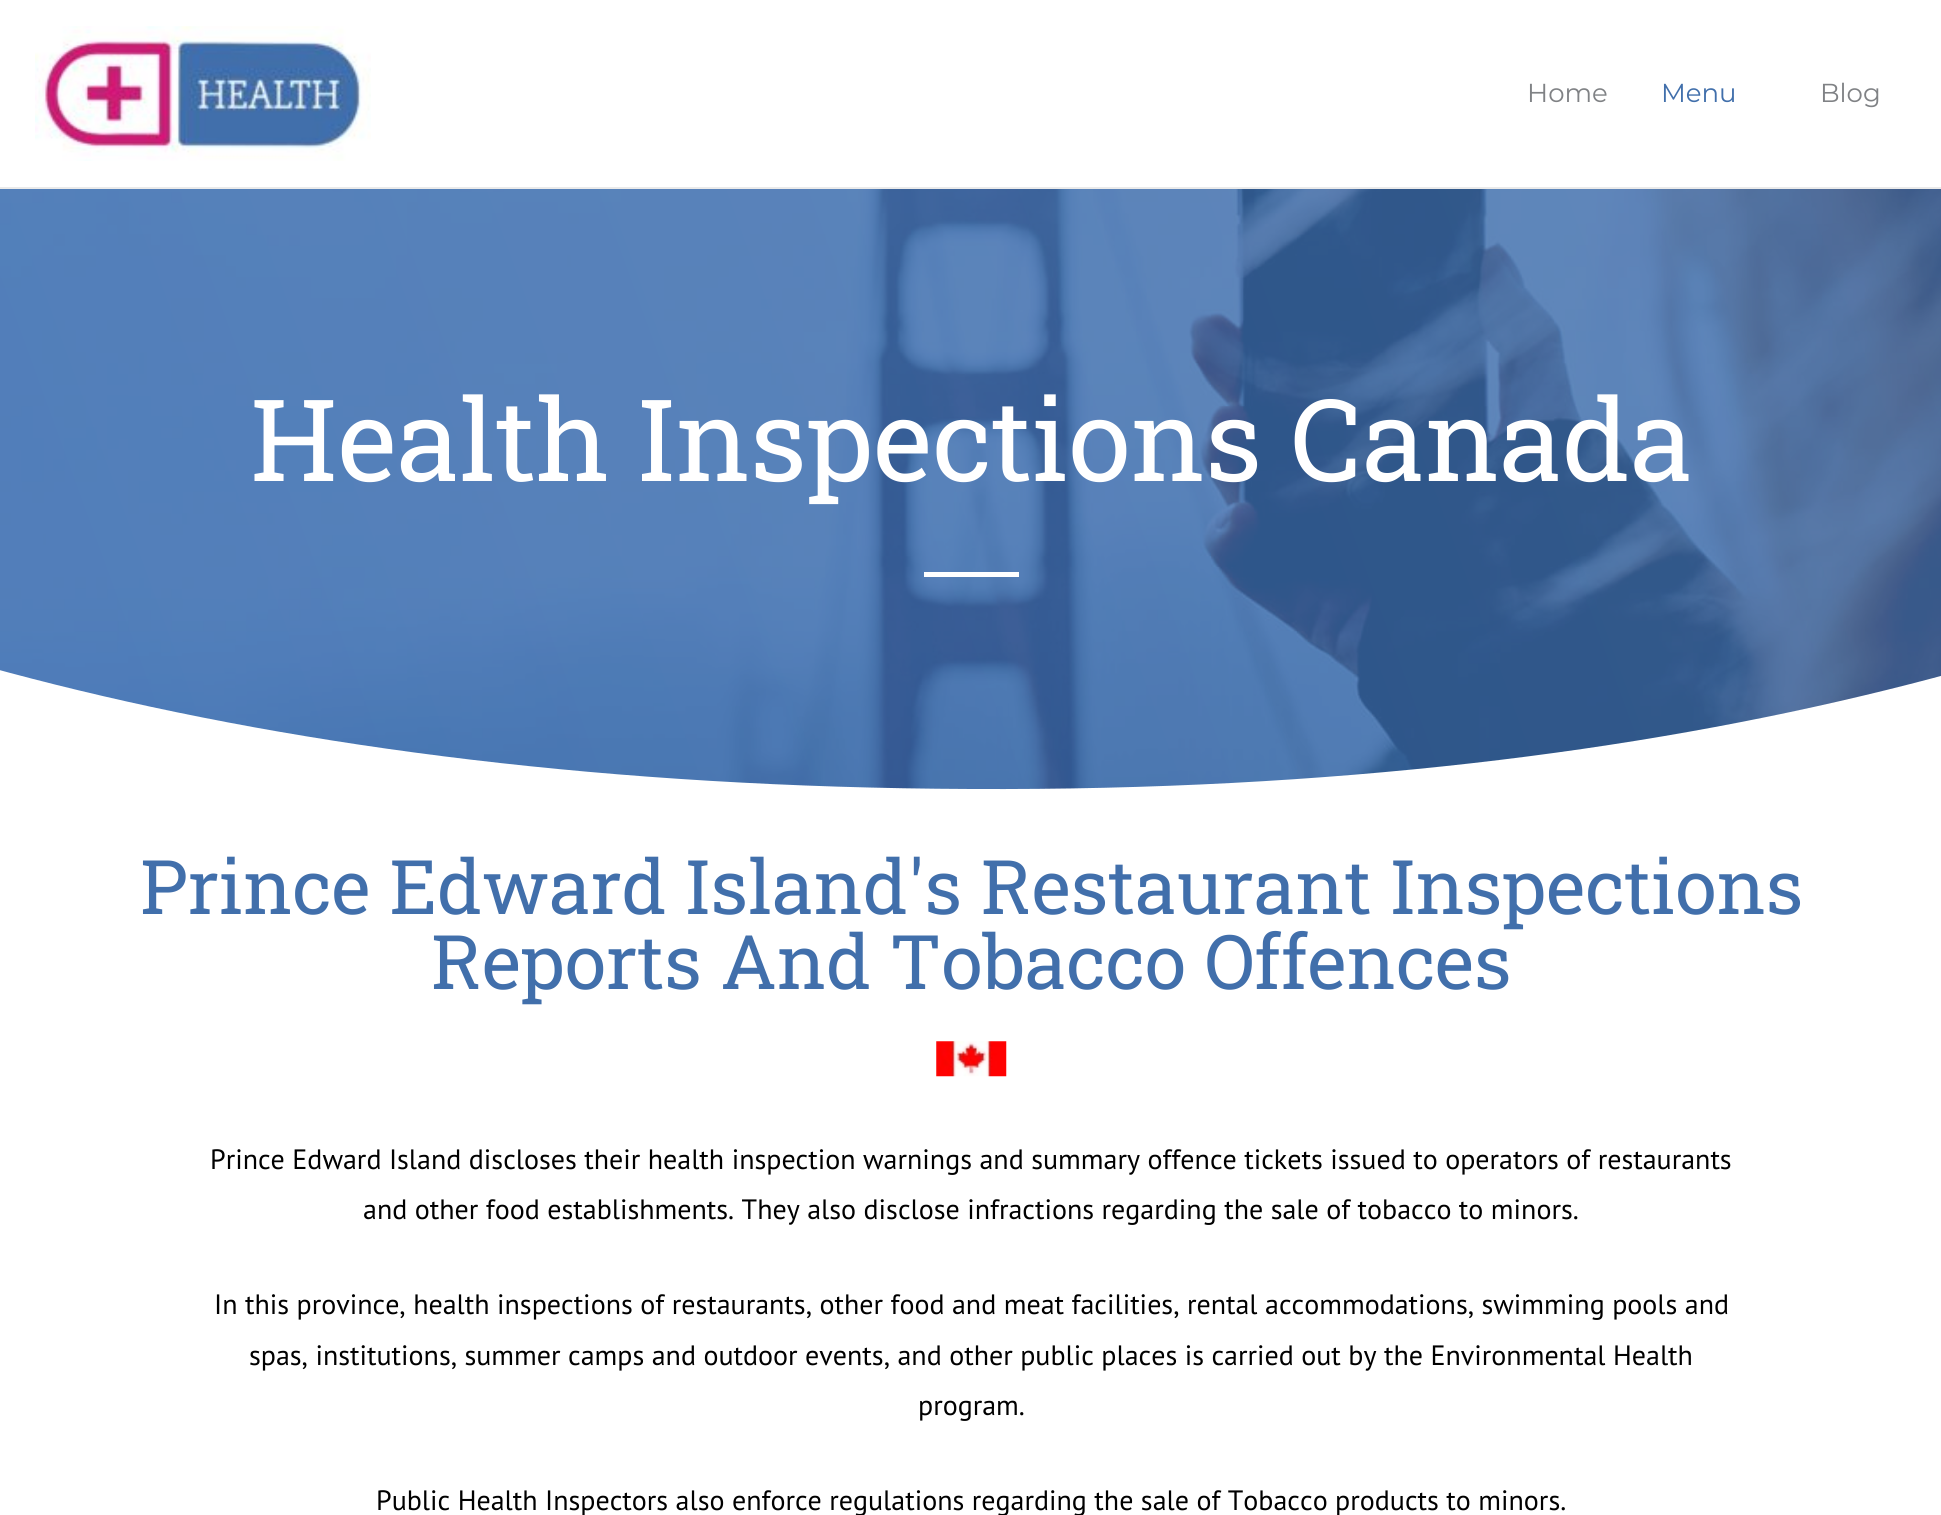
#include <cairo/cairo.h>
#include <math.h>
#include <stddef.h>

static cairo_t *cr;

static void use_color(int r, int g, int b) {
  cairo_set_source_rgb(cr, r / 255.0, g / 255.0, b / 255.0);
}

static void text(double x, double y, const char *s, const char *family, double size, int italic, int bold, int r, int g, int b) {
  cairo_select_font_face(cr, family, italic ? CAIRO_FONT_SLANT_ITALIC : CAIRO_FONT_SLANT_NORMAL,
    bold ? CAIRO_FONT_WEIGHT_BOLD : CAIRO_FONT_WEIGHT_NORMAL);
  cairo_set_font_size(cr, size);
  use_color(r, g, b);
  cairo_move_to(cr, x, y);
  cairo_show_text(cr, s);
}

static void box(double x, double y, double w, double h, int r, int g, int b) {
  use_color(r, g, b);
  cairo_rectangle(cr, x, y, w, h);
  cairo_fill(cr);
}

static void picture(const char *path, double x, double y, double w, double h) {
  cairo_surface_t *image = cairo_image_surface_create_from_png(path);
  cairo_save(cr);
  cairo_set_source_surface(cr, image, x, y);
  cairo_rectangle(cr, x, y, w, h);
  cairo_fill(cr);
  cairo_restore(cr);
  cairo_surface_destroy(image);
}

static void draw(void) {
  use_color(255, 255, 255);
  cairo_paint(cr);
  box(0, 187, 1941, 2, 234, 234, 234);
  picture("img_01.png", 35, 26, 336, 135);
  picture("img_02.png", 0, 189, 1941, 601);
  box(924, 572, 95, 5, 255, 255, 255);
  cairo_new_path(cr);
  cairo_move_to(cr, 971, 789);
  cairo_curve_to(cr, -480, 783, -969, 154, -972, -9);
  cairo_line_to(cr, -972, 814);
  cairo_line_to(cr, 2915, 814);
  cairo_line_to(cr, 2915, -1);
  cairo_curve_to(cr, 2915, 151, 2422, 796, 971, 789);
  cairo_close_path(cr);
  cairo_fill(cr);
  picture("img_03.png", 936, 1041, 71, 36);
  text(1527, 102, "Home", "Montserrat Thin", 26, 0, 0, 128, 130, 133);
  text(1661, 102, "Menu", "Montserrat Thin", 26, 0, 0, 65, 111, 171);
  text(1820, 102, "Blog", "Montserrat Thin", 26, 0, 0, 128, 130, 133);
  text(250, 481, "Health Inspections Canada", "Roboto Slab", 113.75, 0, 0, 255, 255, 255);
  text(140, 914, "Prince Edward Island's Restaurant Inspections", "Roboto Slab", 75.25, 0, 0, 65, 111, 171);
  text(431, 989, "Reports And Tobacco Offences", "Roboto Slab", 75.25, 0, 0, 65, 111, 171);
  text(210, 1169, "Prince Edward Island discloses their health inspection warnings and summary offence tickets issued to operators of restaurants", "PT Sans", 28, 0, 0, 0, 0, 0);
  text(363, 1219, "and other food establishments. They also disclose infractions regarding the sale of tobacco to minors.", "PT Sans", 28, 0, 0, 0, 0, 0);
  text(214, 1314, "In this province, health inspections of restaurants, other food and meat facilities, rental accommodations, swimming pools and", "PT Sans", 28, 0, 0, 0, 0, 0);
  text(249, 1365, "spas, institutions, summer camps and outdoor events, and other public places is carried out by the Environmental Health", "PT Sans", 28, 0, 0, 0, 0, 0);
  text(918, 1415, "program.", "PT Sans", 28, 0, 0, 0, 0, 0);
  text(376, 1510, "Public Health Inspectors also enforce regulations regarding the sale of Tobacco products to minors.", "PT Sans", 28, 0, 0, 0, 0, 0);
}

int main(void) {
  cairo_surface_t *surface = cairo_image_surface_create(CAIRO_FORMAT_RGB24, 1941, 1515);
  cr = cairo_create(surface);
  cairo_font_options_t *options = cairo_font_options_create();
  cairo_font_options_set_hint_metrics(options, CAIRO_HINT_METRICS_OFF);
  cairo_font_options_set_hint_style(options, CAIRO_HINT_STYLE_NONE);
  cairo_set_font_options(cr, options);
  cairo_set_miter_limit(cr, 4);
  draw();
  cairo_surface_write_to_png(surface, "out.png");
  cairo_font_options_destroy(options);
  cairo_destroy(cr);
  cairo_surface_destroy(surface);
  return 0;
}
